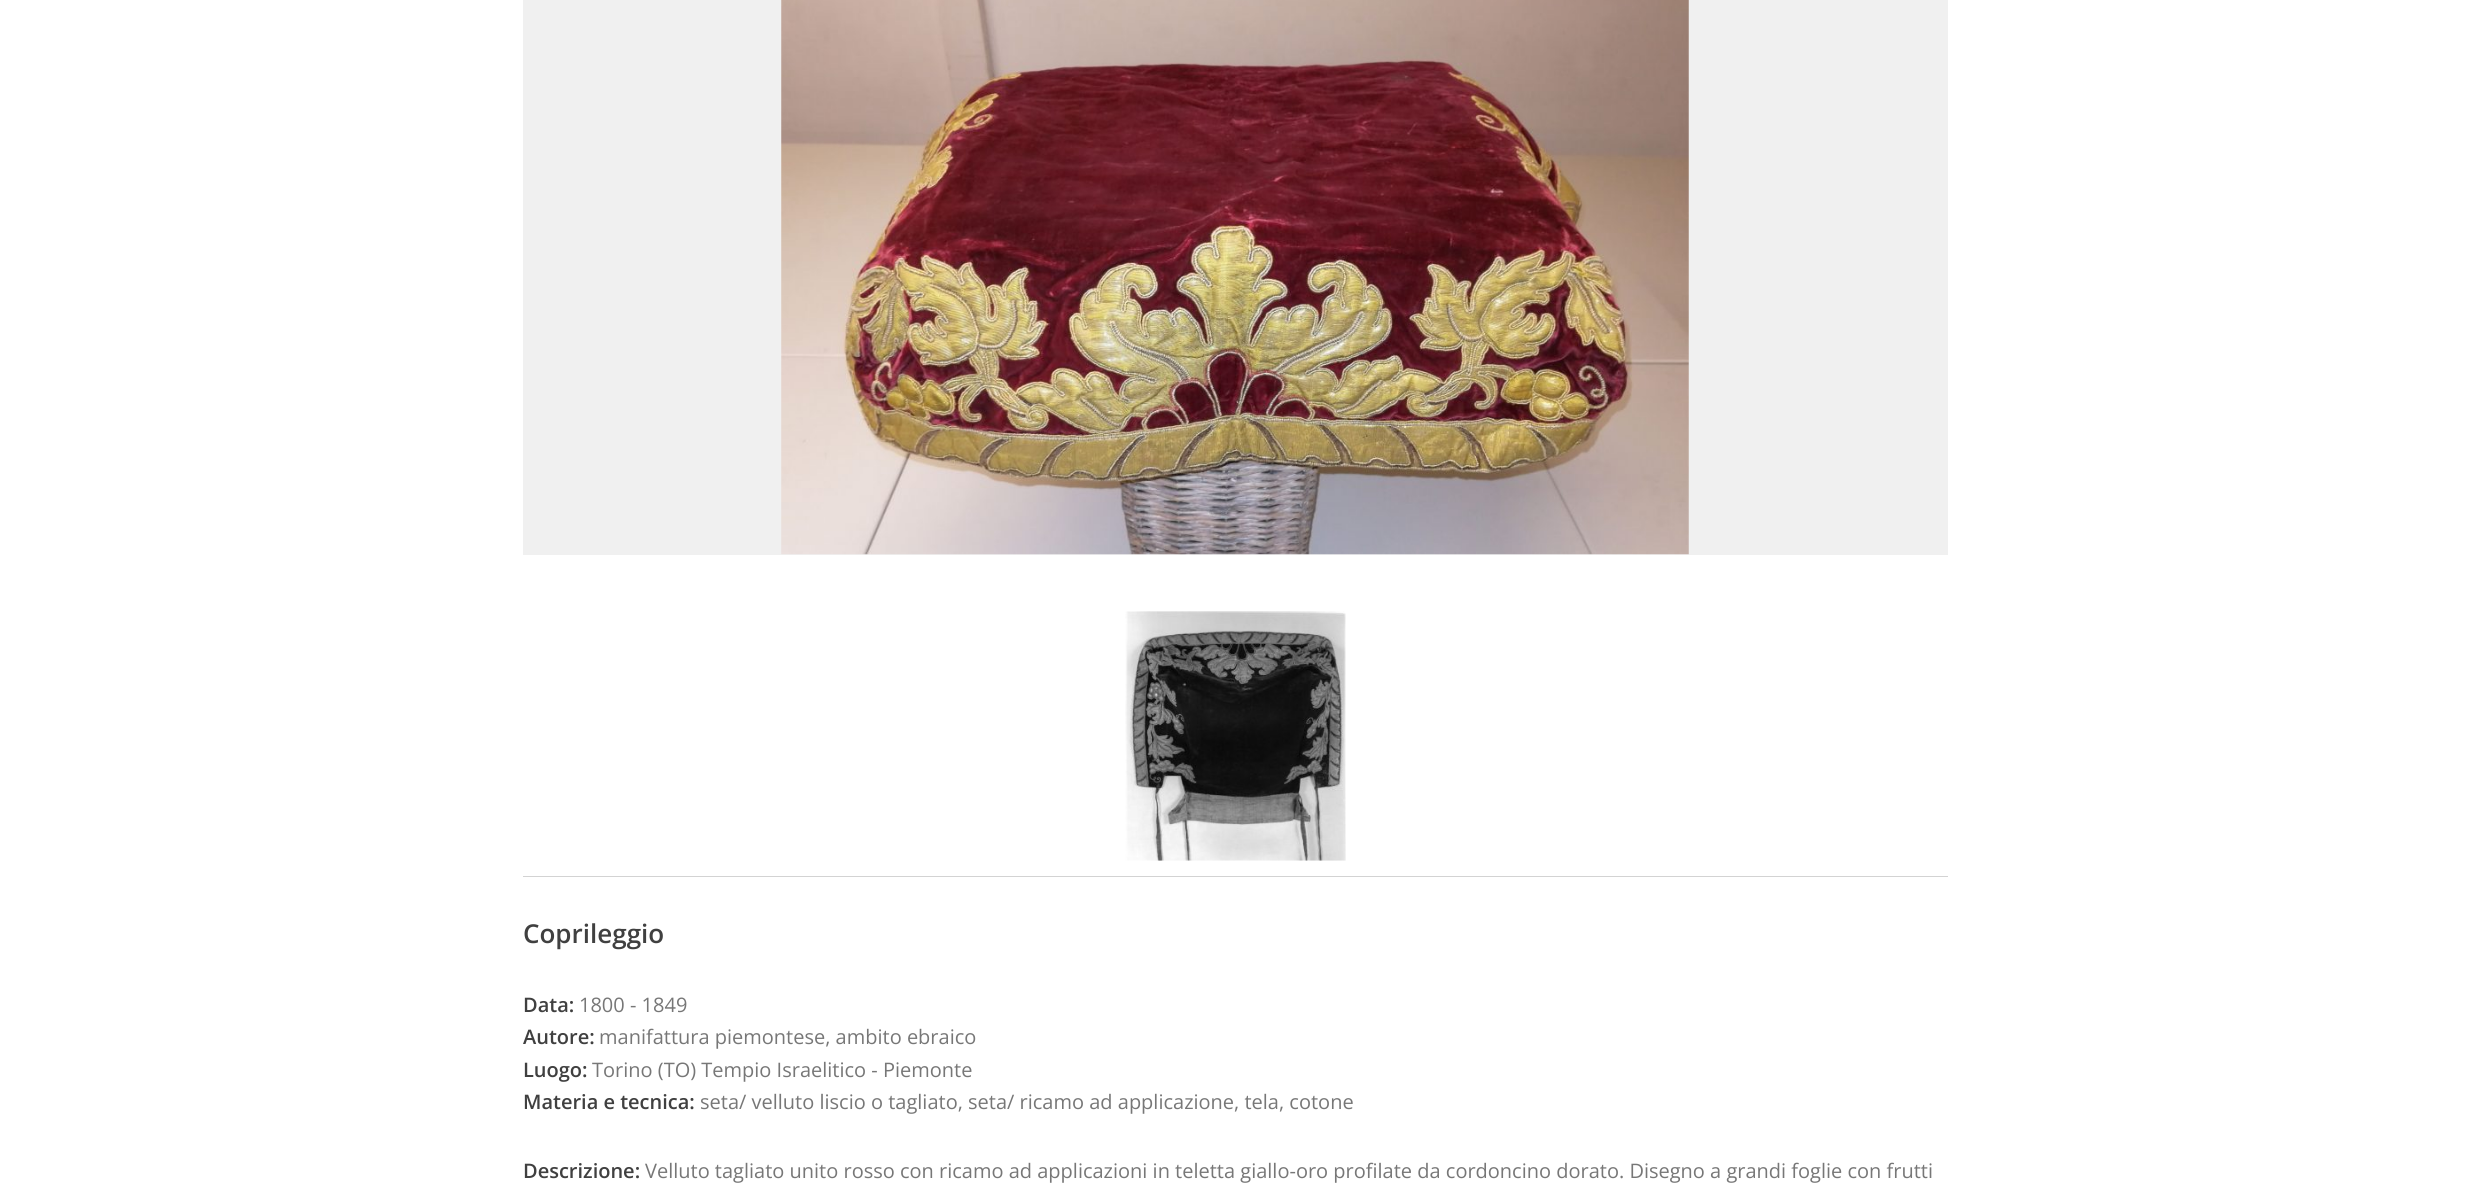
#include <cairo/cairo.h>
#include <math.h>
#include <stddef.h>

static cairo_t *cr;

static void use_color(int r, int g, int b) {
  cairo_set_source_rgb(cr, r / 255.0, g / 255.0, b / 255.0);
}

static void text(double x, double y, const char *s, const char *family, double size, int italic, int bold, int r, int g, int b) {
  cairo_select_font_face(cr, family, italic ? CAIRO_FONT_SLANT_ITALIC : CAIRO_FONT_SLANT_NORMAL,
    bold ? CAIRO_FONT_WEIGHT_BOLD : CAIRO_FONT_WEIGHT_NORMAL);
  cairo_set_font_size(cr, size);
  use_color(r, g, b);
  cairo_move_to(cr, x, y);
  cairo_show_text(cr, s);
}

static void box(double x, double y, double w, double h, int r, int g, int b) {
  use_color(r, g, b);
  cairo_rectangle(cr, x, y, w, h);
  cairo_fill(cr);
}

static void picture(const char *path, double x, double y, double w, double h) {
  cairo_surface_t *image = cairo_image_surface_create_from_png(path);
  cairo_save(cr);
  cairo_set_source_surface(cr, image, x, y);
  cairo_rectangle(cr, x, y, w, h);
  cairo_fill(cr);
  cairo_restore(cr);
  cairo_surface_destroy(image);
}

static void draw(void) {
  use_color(255, 255, 255);
  cairo_paint(cr);
  box(523, 0, 1425, 555, 240, 240, 240);
  picture("img_01.png", 781, 0, 908, 555);
  picture("img_02.png", 1125, 611, 221, 250);
  box(523, 876, 1425, 1, 211, 211, 211);
  text(523, 943, "Coprileggio", "Open Sans SemiBold", 26, 0, 0, 64, 64, 64);
  text(523, 1012, "Data:", "Open Sans SemiBold", 20, 0, 0, 64, 64, 64);
  text(579, 1012, "1800 - 1849", "Open Sans", 20, 0, 0, 119, 119, 119);
  text(523, 1044, "Autore:", "Open Sans SemiBold", 20, 0, 0, 64, 64, 64);
  text(599, 1044, "manifattura piemontese, ambito ebraico", "Open Sans", 20, 0, 0, 119, 119, 119);
  text(523, 1077, "Luogo:", "Open Sans SemiBold", 20, 0, 0, 64, 64, 64);
  text(592, 1077, "Torino (TO) Tempio Israelitico - Piemonte", "Open Sans", 20, 0, 0, 119, 119, 119);
  text(523, 1109, "Materia e tecnica:", "Open Sans SemiBold", 20, 0, 0, 64, 64, 64);
  text(700, 1109, "seta/ velluto liscio o tagliato, seta/ ricamo ad applicazione, tela, cotone", "Open Sans", 20, 0, 0, 119, 119, 119);
  text(523, 1178, "Descrizione:", "Open Sans SemiBold", 20, 0, 0, 64, 64, 64);
  text(645, 1178, "Velluto tagliato unito rosso con ricamo ad applicazioni in teletta giallo-oro profilate da cordoncino dorato. Disegno a grandi foglie con frutti", "Open Sans", 20, 0, 0, 119, 119, 119);
}

int main(void) {
  cairo_surface_t *surface = cairo_image_surface_create(CAIRO_FORMAT_RGB24, 2470, 1183);
  cr = cairo_create(surface);
  cairo_font_options_t *options = cairo_font_options_create();
  cairo_font_options_set_hint_metrics(options, CAIRO_HINT_METRICS_OFF);
  cairo_font_options_set_hint_style(options, CAIRO_HINT_STYLE_NONE);
  cairo_set_font_options(cr, options);
  cairo_set_miter_limit(cr, 4);
  draw();
  cairo_surface_write_to_png(surface, "out.png");
  cairo_font_options_destroy(options);
  cairo_destroy(cr);
  cairo_surface_destroy(surface);
  return 0;
}
